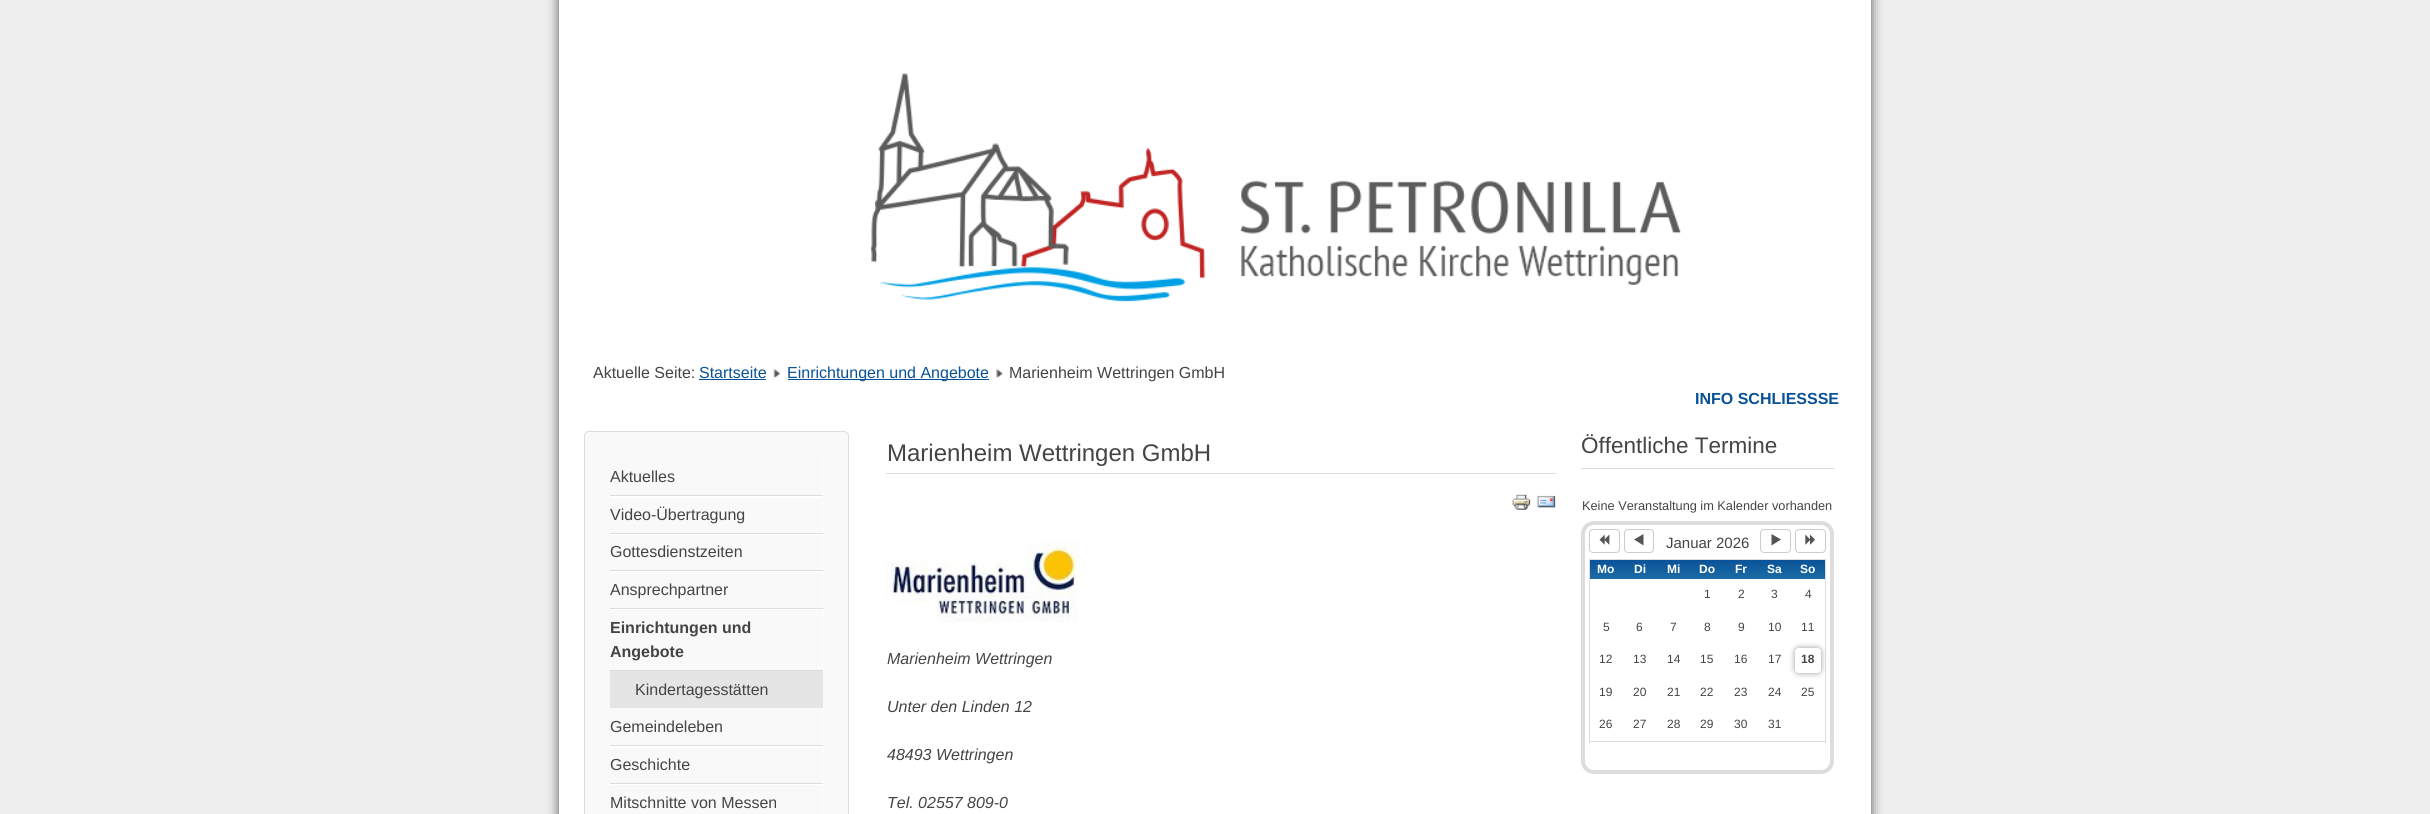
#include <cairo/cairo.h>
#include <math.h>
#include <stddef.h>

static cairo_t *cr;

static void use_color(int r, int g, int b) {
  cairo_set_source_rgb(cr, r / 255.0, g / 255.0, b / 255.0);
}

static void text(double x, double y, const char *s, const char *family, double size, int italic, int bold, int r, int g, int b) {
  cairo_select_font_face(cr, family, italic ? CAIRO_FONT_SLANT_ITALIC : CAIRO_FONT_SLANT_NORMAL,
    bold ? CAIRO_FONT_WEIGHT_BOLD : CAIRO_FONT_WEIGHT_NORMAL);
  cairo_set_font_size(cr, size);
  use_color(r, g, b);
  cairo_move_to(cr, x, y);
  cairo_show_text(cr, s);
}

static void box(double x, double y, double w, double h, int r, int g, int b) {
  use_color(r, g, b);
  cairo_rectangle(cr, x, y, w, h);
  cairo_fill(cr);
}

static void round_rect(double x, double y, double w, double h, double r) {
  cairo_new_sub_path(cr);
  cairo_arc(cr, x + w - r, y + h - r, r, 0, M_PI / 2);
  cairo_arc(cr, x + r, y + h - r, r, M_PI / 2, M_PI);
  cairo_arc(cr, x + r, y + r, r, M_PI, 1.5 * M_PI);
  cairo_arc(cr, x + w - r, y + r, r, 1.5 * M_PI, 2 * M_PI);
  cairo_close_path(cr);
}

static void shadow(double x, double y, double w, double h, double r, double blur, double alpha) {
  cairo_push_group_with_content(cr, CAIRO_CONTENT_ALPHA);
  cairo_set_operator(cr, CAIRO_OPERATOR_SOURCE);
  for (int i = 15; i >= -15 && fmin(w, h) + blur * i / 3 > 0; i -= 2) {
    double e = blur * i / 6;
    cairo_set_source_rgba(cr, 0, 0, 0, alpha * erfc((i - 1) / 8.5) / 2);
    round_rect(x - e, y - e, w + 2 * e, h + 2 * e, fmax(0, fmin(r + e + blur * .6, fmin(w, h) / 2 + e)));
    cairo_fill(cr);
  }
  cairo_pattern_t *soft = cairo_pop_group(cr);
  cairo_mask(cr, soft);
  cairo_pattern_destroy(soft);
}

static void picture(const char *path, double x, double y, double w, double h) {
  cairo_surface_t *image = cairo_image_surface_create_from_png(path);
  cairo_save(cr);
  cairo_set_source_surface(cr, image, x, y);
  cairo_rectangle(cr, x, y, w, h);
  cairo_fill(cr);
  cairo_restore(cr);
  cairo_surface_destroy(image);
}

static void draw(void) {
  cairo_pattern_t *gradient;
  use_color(238, 238, 238);
  cairo_paint(cr);
  use_color(85, 85, 85);
  shadow(559, -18, 1312, 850, 0, 6, 1);
  box(559, 0, 1312, 814, 255, 255, 255);
  picture("img_01.png", 870, 73, 811, 229);
  box(699, 379, 67, 1, 9, 81, 151);
  picture("img_02.png", 773, 368, 8, 10);
  box(788, 379, 201, 1, 9, 81, 151);
  picture("img_03.png", 996, 368, 7, 10);
  use_color(249, 249, 249);
  round_rect(584.5, 431.5, 264, 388, 4.5);
  cairo_fill_preserve(cr);
  use_color(221, 221, 221);
  cairo_set_line_width(cr, 1);
  cairo_stroke(cr);
  use_color(255, 255, 255);
  cairo_new_path(cr);
  cairo_move_to(cr, 610, 496);
  cairo_line_to(cr, 610, 498);
  cairo_line_to(cr, 823, 498);
  cairo_line_to(cr, 823, 459);
  cairo_line_to(cr, 822, 459);
  cairo_line_to(cr, 822, 496);
  cairo_close_path(cr);
  cairo_fill(cr);
  box(610, 495, 213, 1, 221, 221, 221);
  use_color(255, 255, 255);
  cairo_new_path(cr);
  cairo_move_to(cr, 610, 534);
  cairo_line_to(cr, 610, 535);
  cairo_line_to(cr, 823, 535);
  cairo_line_to(cr, 823, 498);
  cairo_line_to(cr, 822, 498);
  cairo_line_to(cr, 822, 534);
  cairo_close_path(cr);
  cairo_fill(cr);
  box(610, 533, 213, 1, 221, 221, 221);
  use_color(255, 255, 255);
  cairo_new_path(cr);
  cairo_move_to(cr, 610, 571);
  cairo_line_to(cr, 610, 573);
  cairo_line_to(cr, 823, 573);
  cairo_line_to(cr, 823, 535);
  cairo_line_to(cr, 822, 535);
  cairo_line_to(cr, 822, 571);
  cairo_close_path(cr);
  cairo_fill(cr);
  box(610, 570, 213, 1, 221, 221, 221);
  use_color(255, 255, 255);
  cairo_new_path(cr);
  cairo_move_to(cr, 610, 609);
  cairo_line_to(cr, 610, 610);
  cairo_line_to(cr, 823, 610);
  cairo_line_to(cr, 823, 573);
  cairo_line_to(cr, 822, 573);
  cairo_line_to(cr, 822, 609);
  cairo_close_path(cr);
  cairo_fill(cr);
  box(610, 608, 213, 1, 221, 221, 221);
  use_color(255, 255, 255);
  cairo_new_path(cr);
  cairo_move_to(cr, 610, 671);
  cairo_line_to(cr, 610, 673);
  cairo_line_to(cr, 823, 673);
  cairo_line_to(cr, 823, 610);
  cairo_line_to(cr, 822, 610);
  cairo_line_to(cr, 822, 671);
  cairo_close_path(cr);
  cairo_fill(cr);
  box(610, 670, 213, 1, 221, 221, 221);
  box(610, 671, 213, 37, 229, 229, 229);
  use_color(255, 255, 255);
  cairo_new_path(cr);
  cairo_move_to(cr, 610, 746);
  cairo_line_to(cr, 610, 748);
  cairo_line_to(cr, 823, 748);
  cairo_line_to(cr, 823, 710);
  cairo_line_to(cr, 822, 710);
  cairo_line_to(cr, 822, 746);
  cairo_close_path(cr);
  cairo_fill(cr);
  box(610, 745, 213, 1, 221, 221, 221);
  use_color(255, 255, 255);
  cairo_new_path(cr);
  cairo_move_to(cr, 610, 784);
  cairo_line_to(cr, 610, 785);
  cairo_line_to(cr, 823, 785);
  cairo_line_to(cr, 823, 748);
  cairo_line_to(cr, 822, 748);
  cairo_line_to(cr, 822, 784);
  cairo_close_path(cr);
  cairo_fill(cr);
  box(610, 783, 213, 1, 221, 221, 221);
  use_color(255, 255, 255);
  cairo_new_path(cr);
  cairo_move_to(cr, 610, 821);
  cairo_line_to(cr, 610, 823);
  cairo_line_to(cr, 823, 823);
  cairo_line_to(cr, 823, 785);
  cairo_line_to(cr, 822, 785);
  cairo_line_to(cr, 822, 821);
  cairo_close_path(cr);
  cairo_fill(cr);
  box(886, 473, 670, 1, 221, 221, 221);
  picture("img_04.png", 1512, 494, 19, 16);
  picture("img_05.png", 1537, 495, 19, 13);
  picture("img_06.png", 886, 542, 193, 81);
  box(1581, 468, 253, 1, 221, 221, 221);
  round_rect(1583, 523, 249, 249, 11);
  cairo_set_line_width(cr, 4);
  cairo_stroke(cr);
  round_rect(1589.5, 529.5, 30, 23, 3.5);
  use_color(204, 204, 204);
  cairo_set_line_width(cr, 1);
  cairo_stroke(cr);
  picture("img_07.png", 1599, 534, 11, 11);
  round_rect(1624.5, 529.5, 29, 23, 3.5);
  cairo_stroke(cr);
  use_color(85, 85, 85);
  cairo_new_path(cr);
  cairo_move_to(cr, 1643.5, 545.5);
  cairo_line_to(cr, 1634, 539.5);
  cairo_line_to(cr, 1643.5, 534);
  cairo_close_path(cr);
  cairo_fill(cr);
  round_rect(1760.5, 529.5, 30, 23, 3.5);
  use_color(204, 204, 204);
  cairo_stroke(cr);
  use_color(85, 85, 85);
  cairo_new_path(cr);
  cairo_move_to(cr, 1771.5, 534);
  cairo_line_to(cr, 1781, 539.5);
  cairo_line_to(cr, 1771.5, 545.5);
  cairo_close_path(cr);
  cairo_fill(cr);
  round_rect(1795.5, 529.5, 30, 23, 3.5);
  use_color(204, 204, 204);
  cairo_stroke(cr);
  picture("img_08.png", 1805, 534, 10, 11);
  box(1589, 559, 237, 1, 221, 221, 221);
  cairo_save(cr);
  cairo_set_fill_rule(cr, CAIRO_FILL_RULE_EVEN_ODD);
  cairo_new_path(cr);
  cairo_move_to(cr, 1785, 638);
  cairo_line_to(cr, 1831, 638);
  cairo_line_to(cr, 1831, 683);
  cairo_line_to(cr, 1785, 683);
  cairo_close_path(cr);
  cairo_move_to(cr, 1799, 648);
  cairo_line_to(cr, 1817, 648);
  cairo_curve_to(cr, 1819, 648, 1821, 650, 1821, 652);
  cairo_line_to(cr, 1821, 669);
  cairo_curve_to(cr, 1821, 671, 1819, 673, 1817, 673);
  cairo_line_to(cr, 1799, 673);
  cairo_curve_to(cr, 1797, 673, 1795, 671, 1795, 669);
  cairo_line_to(cr, 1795, 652);
  cairo_curve_to(cr, 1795, 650, 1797, 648, 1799, 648);
  cairo_close_path(cr);
  cairo_clip(cr);
  use_color(153, 153, 153);
  shadow(1795, 648, 26, 25, 4, 3, 1);
  cairo_restore(cr);
  box(1825, 559, 1, 184, 221, 221, 221);
  box(1589, 741, 237, 1, 221, 221, 221);
  box(1589, 559, 1, 184, 221, 221, 221);
  gradient = cairo_pattern_create_linear(1606, 559, 1606, 579);
  cairo_pattern_add_color_stop_rgba(gradient, 0, 0.035, 0.318, 0.592, 1);
  cairo_pattern_add_color_stop_rgba(gradient, 1, 0.106, 0.42, 0.647, 1);
  cairo_set_source(cr, gradient);
  cairo_pattern_destroy(gradient);
  cairo_rectangle(cr, 1590, 560, 33, 19);
  cairo_fill(cr);
  gradient = cairo_pattern_create_linear(1639, 559, 1639, 579);
  cairo_pattern_add_color_stop_rgba(gradient, 0, 0.035, 0.318, 0.592, 1);
  cairo_pattern_add_color_stop_rgba(gradient, 1, 0.106, 0.42, 0.647, 1);
  cairo_set_source(cr, gradient);
  cairo_pattern_destroy(gradient);
  cairo_rectangle(cr, 1623, 560, 33, 19);
  cairo_fill(cr);
  gradient = cairo_pattern_create_linear(1673, 559, 1673, 579);
  cairo_pattern_add_color_stop_rgba(gradient, 0, 0.035, 0.318, 0.592, 1);
  cairo_pattern_add_color_stop_rgba(gradient, 1, 0.106, 0.42, 0.647, 1);
  cairo_set_source(cr, gradient);
  cairo_pattern_destroy(gradient);
  cairo_rectangle(cr, 1656, 560, 34, 19);
  cairo_fill(cr);
  gradient = cairo_pattern_create_linear(1707, 559, 1707, 579);
  cairo_pattern_add_color_stop_rgba(gradient, 0, 0.035, 0.318, 0.592, 1);
  cairo_pattern_add_color_stop_rgba(gradient, 1, 0.106, 0.42, 0.647, 1);
  cairo_set_source(cr, gradient);
  cairo_pattern_destroy(gradient);
  cairo_rectangle(cr, 1690, 560, 34, 19);
  cairo_fill(cr);
  gradient = cairo_pattern_create_linear(1741, 559, 1741, 579);
  cairo_pattern_add_color_stop_rgba(gradient, 0, 0.035, 0.318, 0.592, 1);
  cairo_pattern_add_color_stop_rgba(gradient, 1, 0.106, 0.42, 0.647, 1);
  cairo_set_source(cr, gradient);
  cairo_pattern_destroy(gradient);
  cairo_rectangle(cr, 1724, 560, 34, 19);
  cairo_fill(cr);
  gradient = cairo_pattern_create_linear(1774, 559, 1774, 579);
  cairo_pattern_add_color_stop_rgba(gradient, 0, 0.035, 0.318, 0.592, 1);
  cairo_pattern_add_color_stop_rgba(gradient, 1, 0.106, 0.42, 0.647, 1);
  cairo_set_source(cr, gradient);
  cairo_pattern_destroy(gradient);
  cairo_rectangle(cr, 1758, 560, 33, 19);
  cairo_fill(cr);
  gradient = cairo_pattern_create_linear(1808, 559, 1808, 579);
  cairo_pattern_add_color_stop_rgba(gradient, 0, 0.035, 0.318, 0.592, 1);
  cairo_pattern_add_color_stop_rgba(gradient, 1, 0.106, 0.42, 0.647, 1);
  cairo_set_source(cr, gradient);
  cairo_pattern_destroy(gradient);
  cairo_rectangle(cr, 1791, 560, 34, 19);
  cairo_fill(cr);
  text(593, 378, "Aktuelle Seite:", "Liberation Sans", 16, 0, 0, 68, 68, 68);
  text(699, 378, "Startseite", "Liberation Sans", 16, 0, 0, 9, 81, 151);
  text(787, 378, "Einrichtungen und Angebote", "Liberation Sans", 16, 0, 0, 9, 81, 151);
  text(1009, 378, "Marienheim Wettringen GmbH", "Liberation Sans", 16, 0, 0, 68, 68, 68);
  text(1695, 404, "INFO SCHLIESSSE", "Liberation Sans", 16, 0, 1, 9, 81, 151);
  text(610, 482, "Aktuelles", "Liberation Sans", 16, 0, 0, 68, 68, 68);
  text(610, 520, "Video-Übertragung", "Liberation Sans", 16, 0, 0, 68, 68, 68);
  text(610, 557, "Gottesdienstzeiten", "Liberation Sans", 16, 0, 0, 68, 68, 68);
  text(610, 595, "Ansprechpartner", "Liberation Sans", 16, 0, 0, 68, 68, 68);
  text(610, 633, "Einrichtungen und", "Liberation Sans", 16, 0, 1, 68, 68, 68);
  text(610, 657, "Angebote", "Liberation Sans", 16, 0, 1, 68, 68, 68);
  text(635, 695, "Kindertagesstätten", "Liberation Sans", 16, 0, 0, 68, 68, 68);
  text(610, 732, "Gemeindeleben", "Liberation Sans", 16, 0, 0, 68, 68, 68);
  text(610, 770, "Geschichte", "Liberation Sans", 16, 0, 0, 68, 68, 68);
  text(610, 808, "Mitschnitte von Messen", "Liberation Sans", 16, 0, 0, 68, 68, 68);
  text(887, 461, "Marienheim Wettringen GmbH", "Liberation Sans", 24, 0, 0, 68, 68, 68);
  text(887, 664, "Marienheim Wettringen", "Liberation Sans", 16, 1, 0, 68, 68, 68);
  text(887, 712, "Unter den Linden 12", "Liberation Sans", 16, 1, 0, 68, 68, 68);
  text(887, 760, "48493 Wettringen", "Liberation Sans", 16, 1, 0, 68, 68, 68);
  text(887, 808, "Tel. 02557 809-0", "Liberation Sans", 16, 1, 0, 68, 68, 68);
  text(1581, 453, "Öffentliche Termine", "Liberation Sans", 22.5, 0, 0, 68, 68, 68);
  text(1582, 510, "Keine Veranstaltung im Kalender vorhanden", "Liberation Sans", 12.75, 0, 0, 68, 68, 68);
  text(1666, 548, "Januar 2026", "Liberation Sans", 15, 0, 0, 68, 68, 68);
  text(1597, 573, "Mo", "Liberation Sans", 12, 0, 1, 255, 255, 255);
  text(1634, 573, "Di", "Liberation Sans", 12, 0, 1, 255, 255, 255);
  text(1667, 573, "Mi", "Liberation Sans", 12, 0, 1, 255, 255, 255);
  text(1699, 573, "Do", "Liberation Sans", 12, 0, 1, 255, 255, 255);
  text(1735, 573, "Fr", "Liberation Sans", 12, 0, 1, 255, 255, 255);
  text(1767, 573, "Sa", "Liberation Sans", 12, 0, 1, 255, 255, 255);
  text(1800, 573, "So", "Liberation Sans", 12, 0, 1, 255, 255, 255);
  text(1704, 598, "1", "Liberation Sans", 12, 0, 0, 68, 68, 68);
  text(1738, 598, "2", "Liberation Sans", 12, 0, 0, 68, 68, 68);
  text(1771, 598, "3", "Liberation Sans", 12, 0, 0, 68, 68, 68);
  text(1805, 598, "4", "Liberation Sans", 12, 0, 0, 68, 68, 68);
  text(1603, 631, "5", "Liberation Sans", 12, 0, 0, 68, 68, 68);
  text(1636, 631, "6", "Liberation Sans", 12, 0, 0, 68, 68, 68);
  text(1670, 631, "7", "Liberation Sans", 12, 0, 0, 68, 68, 68);
  text(1704, 631, "8", "Liberation Sans", 12, 0, 0, 68, 68, 68);
  text(1738, 631, "9", "Liberation Sans", 12, 0, 0, 68, 68, 68);
  text(1768, 631, "10", "Liberation Sans", 12, 0, 0, 68, 68, 68);
  text(1801, 631, "11", "Liberation Sans", 12, 0, 0, 68, 68, 68);
  text(1599, 663, "12", "Liberation Sans", 12, 0, 0, 68, 68, 68);
  text(1633, 663, "13", "Liberation Sans", 12, 0, 0, 68, 68, 68);
  text(1667, 663, "14", "Liberation Sans", 12, 0, 0, 68, 68, 68);
  text(1700, 663, "15", "Liberation Sans", 12, 0, 0, 68, 68, 68);
  text(1734, 663, "16", "Liberation Sans", 12, 0, 0, 68, 68, 68);
  text(1768, 663, "17", "Liberation Sans", 12, 0, 0, 68, 68, 68);
  text(1801, 663, "18", "Liberation Sans", 12, 0, 1, 68, 68, 68);
  text(1599, 696, "19", "Liberation Sans", 12, 0, 0, 68, 68, 68);
  text(1633, 696, "20", "Liberation Sans", 12, 0, 0, 68, 68, 68);
  text(1667, 696, "21", "Liberation Sans", 12, 0, 0, 68, 68, 68);
  text(1700, 696, "22", "Liberation Sans", 12, 0, 0, 68, 68, 68);
  text(1734, 696, "23", "Liberation Sans", 12, 0, 0, 68, 68, 68);
  text(1768, 696, "24", "Liberation Sans", 12, 0, 0, 68, 68, 68);
  text(1801, 696, "25", "Liberation Sans", 12, 0, 0, 68, 68, 68);
  text(1599, 728, "26", "Liberation Sans", 12, 0, 0, 68, 68, 68);
  text(1633, 728, "27", "Liberation Sans", 12, 0, 0, 68, 68, 68);
  text(1667, 728, "28", "Liberation Sans", 12, 0, 0, 68, 68, 68);
  text(1700, 728, "29", "Liberation Sans", 12, 0, 0, 68, 68, 68);
  text(1734, 728, "30", "Liberation Sans", 12, 0, 0, 68, 68, 68);
  text(1768, 728, "31", "Liberation Sans", 12, 0, 0, 68, 68, 68);
}

int main(void) {
  cairo_surface_t *surface = cairo_image_surface_create(CAIRO_FORMAT_RGB24, 2430, 814);
  cr = cairo_create(surface);
  cairo_font_options_t *options = cairo_font_options_create();
  cairo_font_options_set_hint_metrics(options, CAIRO_HINT_METRICS_OFF);
  cairo_font_options_set_hint_style(options, CAIRO_HINT_STYLE_NONE);
  cairo_set_font_options(cr, options);
  cairo_set_miter_limit(cr, 4);
  draw();
  cairo_surface_write_to_png(surface, "out.png");
  cairo_font_options_destroy(options);
  cairo_destroy(cr);
  cairo_surface_destroy(surface);
  return 0;
}
